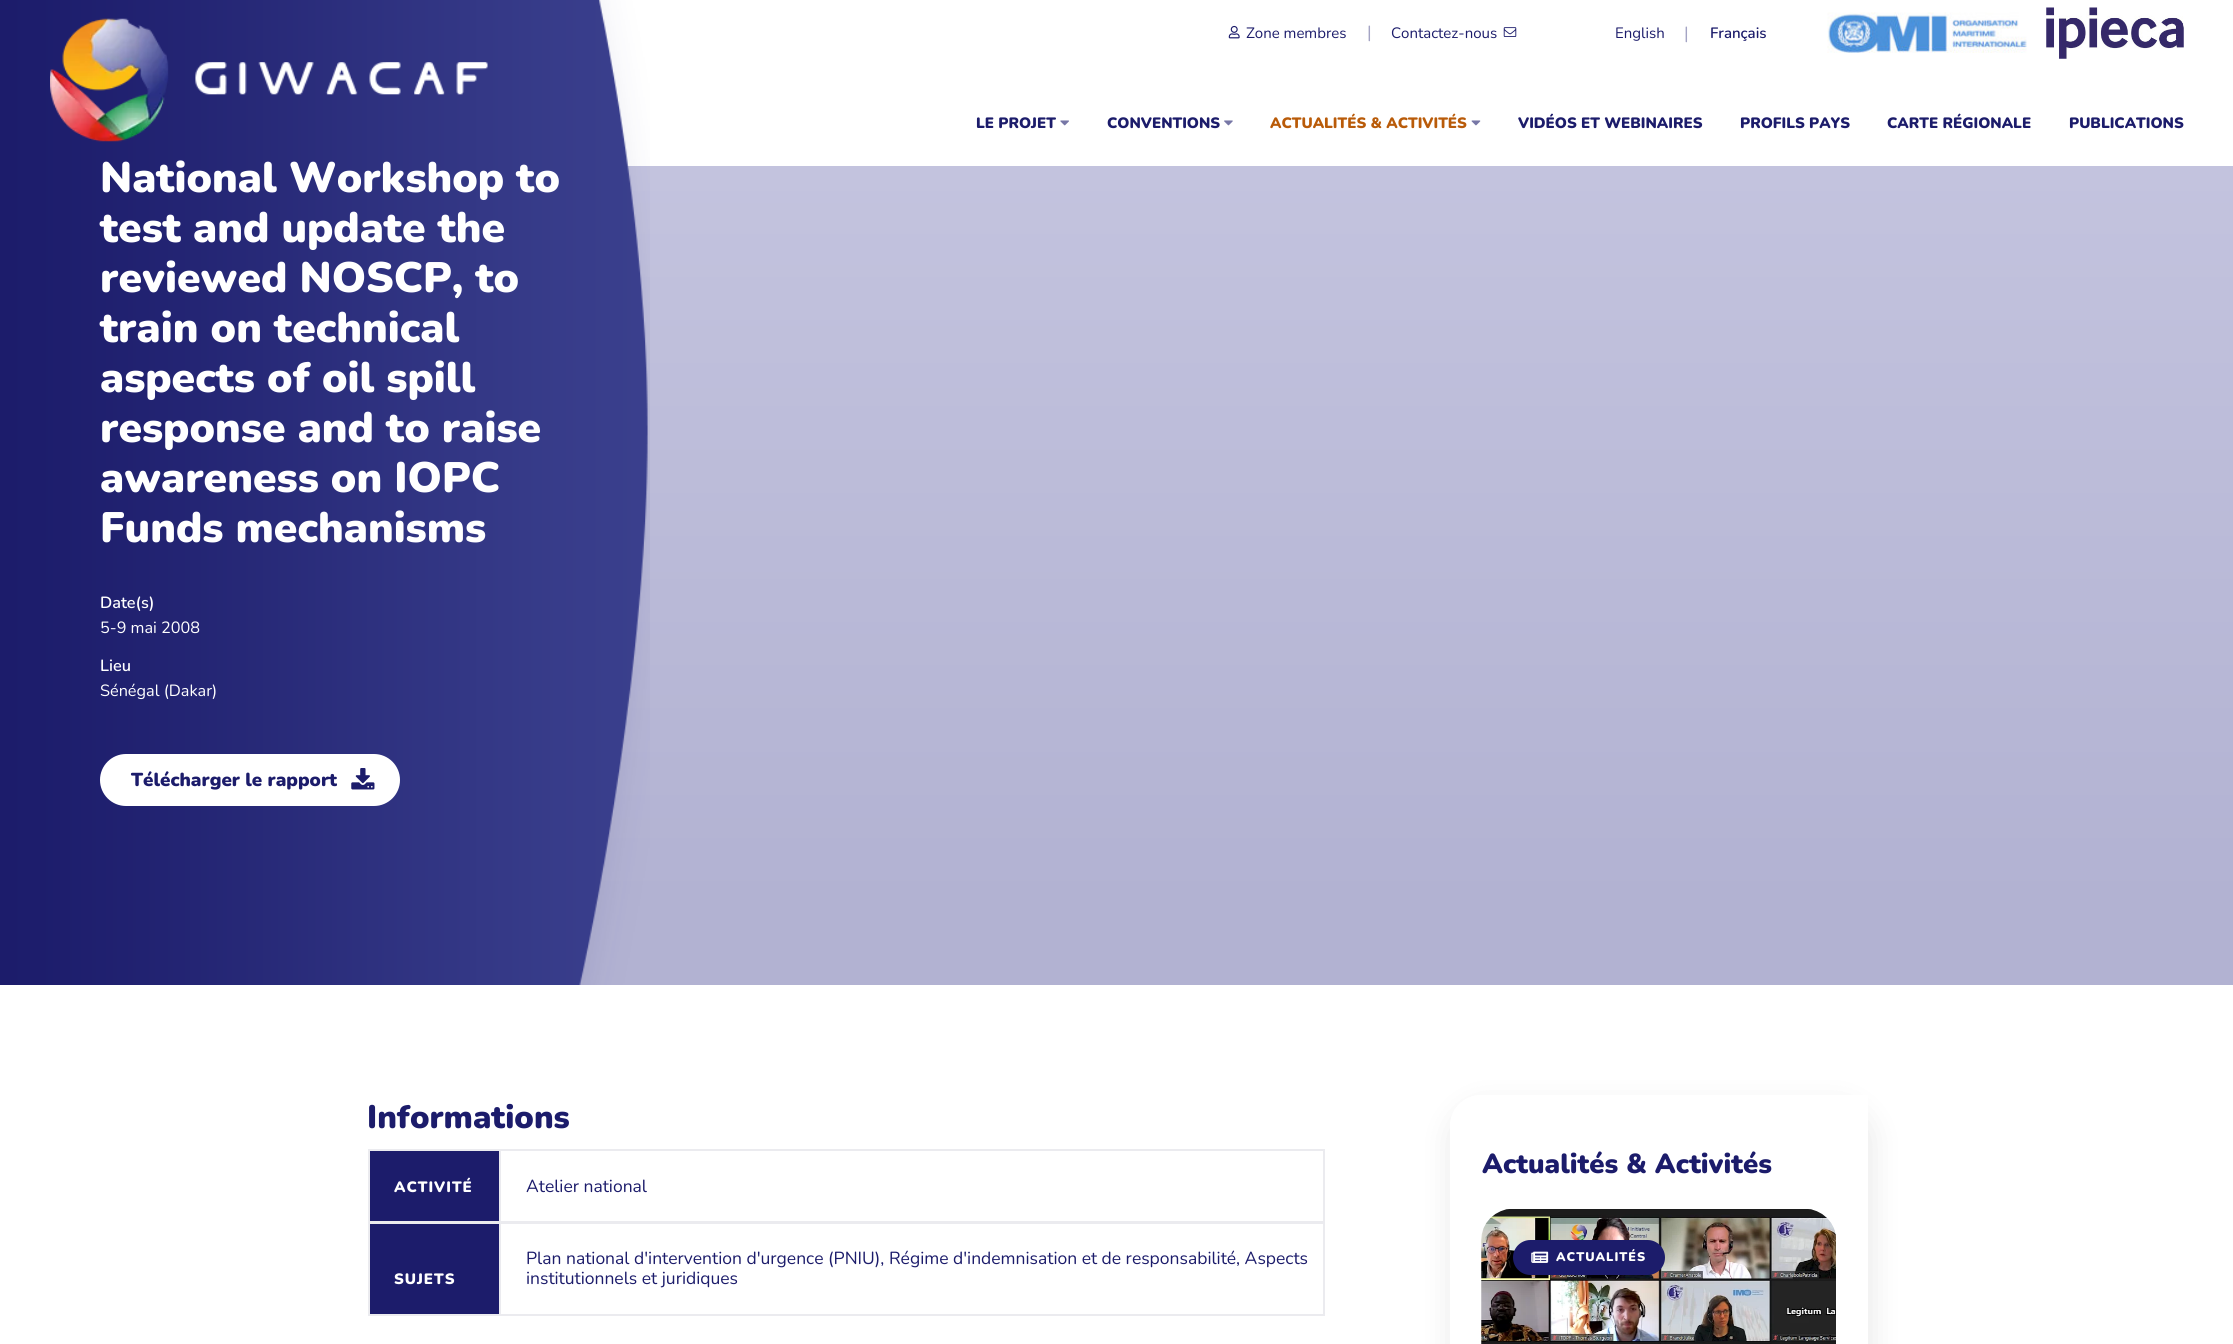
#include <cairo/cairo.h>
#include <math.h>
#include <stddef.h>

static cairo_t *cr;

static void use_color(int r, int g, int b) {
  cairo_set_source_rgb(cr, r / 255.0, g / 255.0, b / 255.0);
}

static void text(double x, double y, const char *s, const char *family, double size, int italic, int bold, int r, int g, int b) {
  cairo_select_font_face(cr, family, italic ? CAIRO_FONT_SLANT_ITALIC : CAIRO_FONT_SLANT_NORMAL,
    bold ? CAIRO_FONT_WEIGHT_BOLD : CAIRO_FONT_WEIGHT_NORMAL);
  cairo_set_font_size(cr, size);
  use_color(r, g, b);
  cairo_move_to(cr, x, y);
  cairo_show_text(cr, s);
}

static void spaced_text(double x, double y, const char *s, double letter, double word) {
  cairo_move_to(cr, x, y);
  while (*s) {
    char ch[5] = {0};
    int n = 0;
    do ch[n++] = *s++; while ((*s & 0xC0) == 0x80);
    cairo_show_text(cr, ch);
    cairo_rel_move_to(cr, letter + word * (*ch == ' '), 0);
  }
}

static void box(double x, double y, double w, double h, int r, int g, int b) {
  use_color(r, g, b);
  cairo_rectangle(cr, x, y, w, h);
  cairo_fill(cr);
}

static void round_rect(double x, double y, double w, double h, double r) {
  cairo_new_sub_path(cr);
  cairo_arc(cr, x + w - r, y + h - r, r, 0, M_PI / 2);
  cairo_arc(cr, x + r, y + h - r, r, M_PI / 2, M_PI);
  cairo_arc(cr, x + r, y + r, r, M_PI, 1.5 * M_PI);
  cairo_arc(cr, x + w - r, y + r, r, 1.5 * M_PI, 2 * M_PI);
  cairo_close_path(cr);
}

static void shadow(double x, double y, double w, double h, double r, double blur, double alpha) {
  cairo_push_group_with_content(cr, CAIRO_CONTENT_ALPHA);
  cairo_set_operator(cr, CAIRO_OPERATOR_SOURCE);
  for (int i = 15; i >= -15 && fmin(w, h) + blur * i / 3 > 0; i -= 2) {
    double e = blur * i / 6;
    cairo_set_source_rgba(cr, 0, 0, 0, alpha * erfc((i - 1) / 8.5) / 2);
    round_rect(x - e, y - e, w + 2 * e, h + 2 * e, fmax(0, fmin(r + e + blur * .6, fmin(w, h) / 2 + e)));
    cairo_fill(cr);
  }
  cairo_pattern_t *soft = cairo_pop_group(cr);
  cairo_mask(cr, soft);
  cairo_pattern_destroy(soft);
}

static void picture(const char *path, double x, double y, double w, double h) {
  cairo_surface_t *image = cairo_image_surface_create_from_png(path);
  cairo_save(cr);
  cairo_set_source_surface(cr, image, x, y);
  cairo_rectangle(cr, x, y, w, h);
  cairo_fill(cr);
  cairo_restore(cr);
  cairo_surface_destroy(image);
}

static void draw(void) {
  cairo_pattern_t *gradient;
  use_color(255, 255, 255);
  cairo_paint(cr);
  picture("img_01.png", 1228, 25, 12, 14);
  picture("img_02.png", 1503, 27, 14, 10);
  picture("img_03.png", 1827, 12, 200, 41);
  picture("img_04.png", 2046, 7, 138, 52);
  picture("img_05.png", 1060, 120, 9, 6);
  picture("img_06.png", 1224, 120, 9, 6);
  picture("img_07.png", 1471, 120, 10, 6);
  gradient = cairo_pattern_create_linear(1117, 166, 1117, 985);
  cairo_pattern_add_color_stop_rgba(gradient, 0, 0.765, 0.765, 0.871, 1);
  cairo_pattern_add_color_stop_rgba(gradient, 0.9, 0.698, 0.698, 0.824, 1);
  cairo_set_source(cr, gradient);
  cairo_pattern_destroy(gradient);
  cairo_rectangle(cr, 579, 166, 1654, 819);
  cairo_fill(cr);
  picture("img_08.png", 0, 0, 650, 985);
  picture("img_09.png", 50, 18, 438, 124);
  use_color(255, 255, 255);
  round_rect(100, 754, 300, 52, 26);
  cairo_fill(cr);
  picture("img_10.png", 351, 768, 24, 22);
  box(368, 1149, 957, 167, 235, 235, 239);
  box(370, 1151, 129, 70, 28, 28, 107);
  box(501, 1151, 822, 70, 255, 255, 255);
  box(370, 1224, 129, 90, 28, 28, 107);
  box(501, 1224, 822, 90, 255, 255, 255);
  cairo_save(cr);
  cairo_set_fill_rule(cr, CAIRO_FILL_RULE_EVEN_ODD);
  cairo_new_path(cr);
  cairo_move_to(cr, 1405, 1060);
  cairo_line_to(cr, 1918, 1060);
  cairo_line_to(cr, 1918, 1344);
  cairo_line_to(cr, 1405, 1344);
  cairo_close_path(cr);
  cairo_move_to(cr, 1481, 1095);
  cairo_line_to(cr, 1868, 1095);
  cairo_line_to(cr, 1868, 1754);
  cairo_curve_to(cr, 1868, 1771, 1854, 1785, 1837, 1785);
  cairo_line_to(cr, 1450, 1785);
  cairo_line_to(cr, 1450, 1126);
  cairo_curve_to(cr, 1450, 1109, 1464, 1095, 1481, 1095);
  cairo_close_path(cr);
  cairo_clip(cr);
  use_color(0, 0, 0);
  shadow(1453, 1108, 417, 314, 31, 15.5, 0.1);
  cairo_restore(cr);
  picture("img_11.png", 1481, 1209, 355, 135);
  use_color(28, 28, 107);
  round_rect(1513, 1240, 152, 35, 17.5);
  cairo_fill(cr);
  picture("img_12.png", 1531, 1251, 18, 12);
  text(1246, 38, "Zone membres", "Nunito", 15, 0, 0, 28, 28, 107);
  text(1367, 38, "|", "Nunito", 17.5, 0, 0, 164, 164, 196);
  text(1391, 38, "Contactez-nous", "Nunito", 15, 0, 0, 28, 28, 107);
  text(1615, 38, "English", "Nunito", 15, 0, 0, 28, 28, 107);
  text(1684, 39, "|", "Nunito", 17.5, 0, 0, 164, 164, 196);
  text(1710, 38, "Français", "Nunito SemiBold", 15, 0, 0, 28, 28, 107);
  text(976, 128, "LE PROJET", "Nunito Black", 15, 0, 0, 28, 28, 107);
  text(1107, 128, "CONVENTIONS", "Nunito Black", 15, 0, 0, 28, 28, 107);
  text(1270, 128, "ACTUALITÉS & ACTIVITÉS", "Nunito Black", 15, 0, 0, 185, 91, 9);
  text(1518, 128, "VIDÉOS ET WEBINAIRES", "Nunito Black", 15, 0, 0, 28, 28, 107);
  text(1740, 128, "PROFILS PAYS", "Nunito Black", 15, 0, 0, 28, 28, 107);
  text(1887, 128, "CARTE RÉGIONALE", "Nunito Black", 15, 0, 0, 28, 28, 107);
  text(2069, 128, "PUBLICATIONS", "Nunito Black", 15, 0, 0, 28, 28, 107);
  text(100, 192, "National Workshop to", "Nunito Black", 42.5, 0, 0, 255, 255, 255);
  text(100, 242, "test and update the", "Nunito Black", 42.5, 0, 0, 255, 255, 255);
  text(100, 292, "reviewed NOSCP, to", "Nunito Black", 42.5, 0, 0, 255, 255, 255);
  text(100, 342, "train on technical", "Nunito Black", 42.5, 0, 0, 255, 255, 255);
  text(100, 392, "aspects of oil spill", "Nunito Black", 42.5, 0, 0, 255, 255, 255);
  text(100, 442, "response and to raise", "Nunito Black", 42.5, 0, 0, 255, 255, 255);
  text(100, 492, "awareness on IOPC", "Nunito Black", 42.5, 0, 0, 255, 255, 255);
  text(100, 542, "Funds mechanisms", "Nunito Black", 42.5, 0, 0, 255, 255, 255);
  text(100, 608, "Date(s)", "Nunito SemiBold", 16.25, 0, 0, 255, 255, 255);
  text(100, 633, "5-9 mai 2008", "Nunito", 16.25, 0, 0, 255, 255, 255);
  text(100, 671, "Lieu", "Nunito SemiBold", 16.25, 0, 0, 255, 255, 255);
  text(100, 696, "Sénégal (Dakar)", "Nunito", 16.25, 0, 0, 255, 255, 255);
  text(131, 786, "Télécharger le rapport", "Nunito Black", 18.75, 0, 0, 28, 28, 107);
  text(367, 1128, "Informations", "Nunito Black", 32.5, 0, 0, 28, 28, 107);
  cairo_set_font_size(cr, 15);
  use_color(255, 255, 255);
  spaced_text(394, 1192, "ACTIVITÉ", 1, 0);
  text(526, 1192, "Atelier national", "Nunito", 17.5, 0, 0, 28, 28, 107);
  cairo_select_font_face(cr, "Nunito Black", CAIRO_FONT_SLANT_NORMAL, CAIRO_FONT_WEIGHT_NORMAL);
  cairo_set_font_size(cr, 15);
  use_color(255, 255, 255);
  spaced_text(394, 1284, "SUJETS", 1, 0);
  text(526, 1264, "Plan national d'intervention d'urgence (PNIU), Régime d'indemnisation et de responsabilité, Aspects", "Nunito", 17.5, 0, 0, 28, 28, 107);
  text(526, 1284, "institutionnels et juridiques", "Nunito", 17.5, 0, 0, 28, 28, 107);
  text(1482, 1173, "Actualités & Activités", "Nunito Black", 27.5, 0, 0, 28, 28, 107);
  cairo_set_font_size(cr, 12.5);
  use_color(255, 255, 255);
  spaced_text(1556, 1261, "ACTUALITÉS", 1, 0);
}

int main(void) {
  cairo_surface_t *surface = cairo_image_surface_create(CAIRO_FORMAT_RGB24, 2233, 1344);
  cr = cairo_create(surface);
  cairo_font_options_t *options = cairo_font_options_create();
  cairo_font_options_set_hint_metrics(options, CAIRO_HINT_METRICS_OFF);
  cairo_font_options_set_hint_style(options, CAIRO_HINT_STYLE_NONE);
  cairo_set_font_options(cr, options);
  cairo_set_miter_limit(cr, 4);
  draw();
  cairo_surface_write_to_png(surface, "out.png");
  cairo_font_options_destroy(options);
  cairo_destroy(cr);
  cairo_surface_destroy(surface);
  return 0;
}
